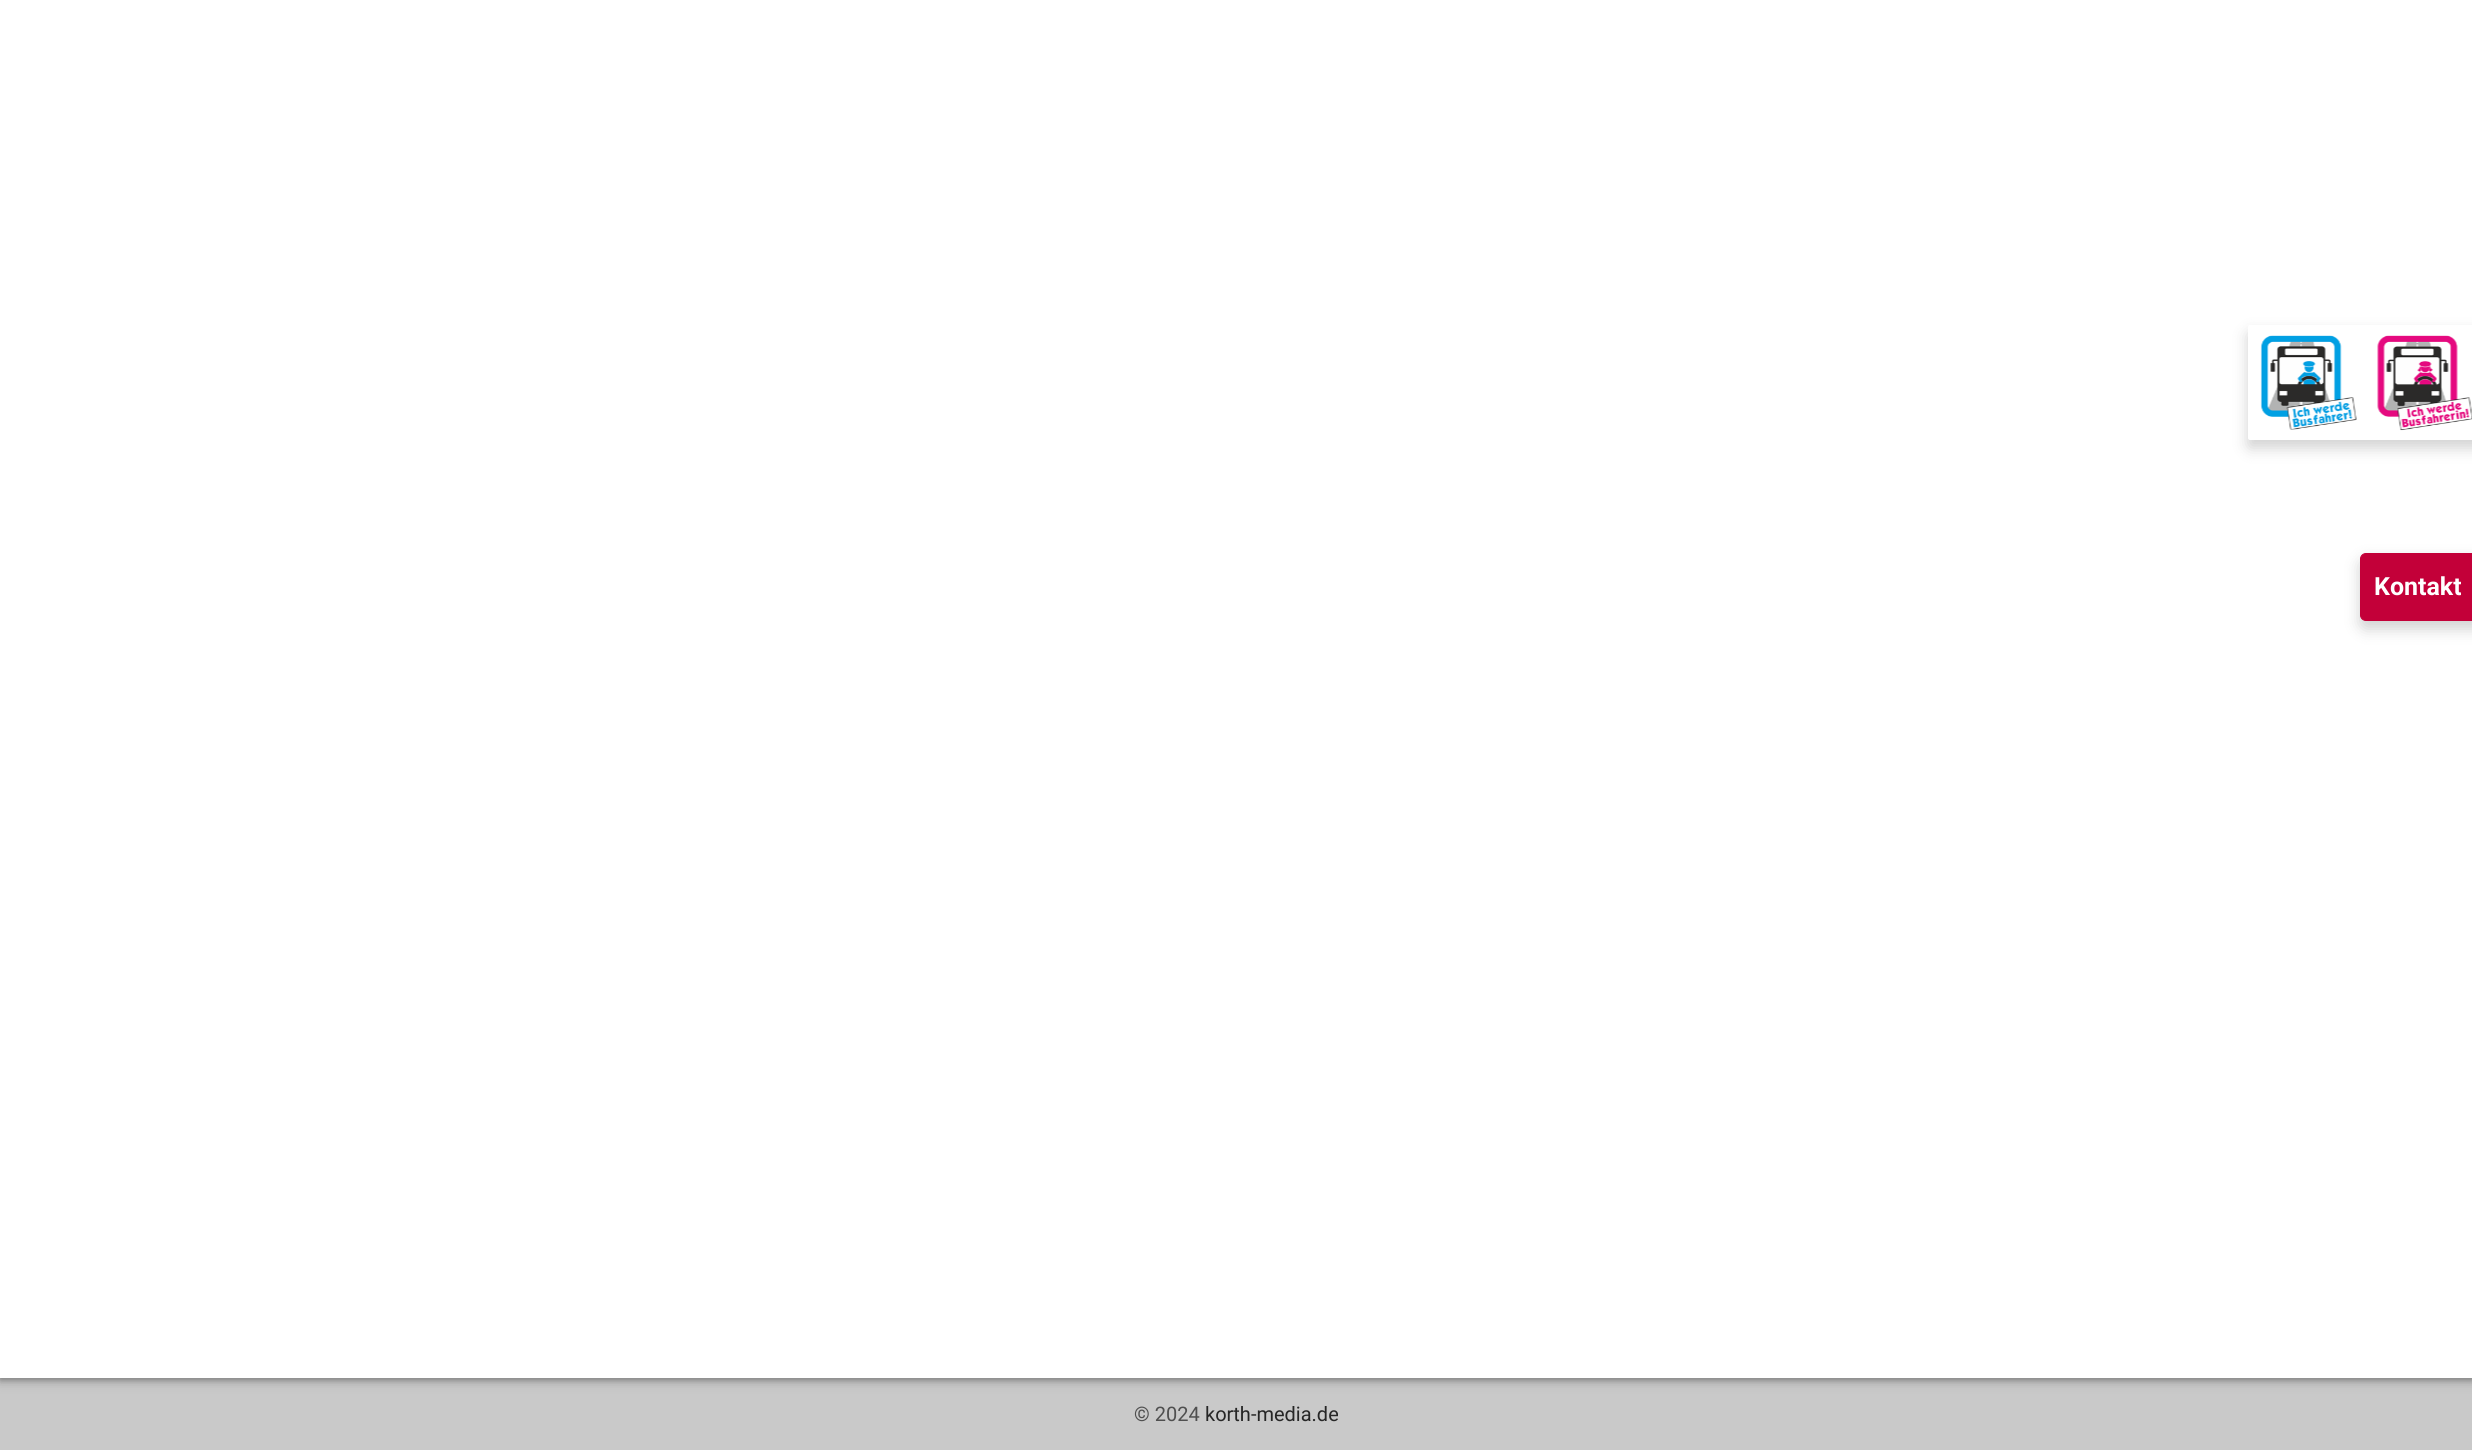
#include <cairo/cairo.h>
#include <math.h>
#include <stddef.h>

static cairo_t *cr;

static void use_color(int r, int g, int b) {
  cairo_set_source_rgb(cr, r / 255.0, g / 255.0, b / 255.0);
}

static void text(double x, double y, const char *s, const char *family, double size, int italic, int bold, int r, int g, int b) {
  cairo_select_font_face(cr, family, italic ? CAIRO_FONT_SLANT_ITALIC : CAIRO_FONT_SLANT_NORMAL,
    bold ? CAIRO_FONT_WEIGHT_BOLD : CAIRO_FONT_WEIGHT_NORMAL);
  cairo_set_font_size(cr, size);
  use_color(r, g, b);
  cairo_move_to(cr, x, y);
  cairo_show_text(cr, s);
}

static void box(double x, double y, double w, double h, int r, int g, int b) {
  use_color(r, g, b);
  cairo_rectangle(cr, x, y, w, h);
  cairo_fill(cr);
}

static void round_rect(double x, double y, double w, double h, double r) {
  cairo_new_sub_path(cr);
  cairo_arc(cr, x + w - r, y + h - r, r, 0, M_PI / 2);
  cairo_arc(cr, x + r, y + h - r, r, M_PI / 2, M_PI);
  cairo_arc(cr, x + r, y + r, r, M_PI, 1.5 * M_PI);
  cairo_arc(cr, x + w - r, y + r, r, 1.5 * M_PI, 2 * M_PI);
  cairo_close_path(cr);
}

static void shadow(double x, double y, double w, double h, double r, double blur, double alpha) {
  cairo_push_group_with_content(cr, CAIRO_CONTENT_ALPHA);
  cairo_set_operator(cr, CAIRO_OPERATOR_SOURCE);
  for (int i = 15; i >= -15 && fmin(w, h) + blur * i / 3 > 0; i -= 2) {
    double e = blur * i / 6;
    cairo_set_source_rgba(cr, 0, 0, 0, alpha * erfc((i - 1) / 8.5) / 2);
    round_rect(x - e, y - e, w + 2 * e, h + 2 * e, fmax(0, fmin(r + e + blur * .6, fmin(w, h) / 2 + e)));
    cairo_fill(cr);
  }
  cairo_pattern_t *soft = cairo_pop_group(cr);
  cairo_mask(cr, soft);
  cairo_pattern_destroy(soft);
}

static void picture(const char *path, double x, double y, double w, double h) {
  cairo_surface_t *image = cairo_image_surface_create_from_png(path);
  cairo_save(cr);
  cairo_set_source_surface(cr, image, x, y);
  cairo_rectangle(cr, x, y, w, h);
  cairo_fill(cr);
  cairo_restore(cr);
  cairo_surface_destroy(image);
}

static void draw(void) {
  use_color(255, 255, 255);
  cairo_paint(cr);
  box(0, 1378, 2472, 72, 201, 201, 201);
  cairo_save(cr);
  cairo_set_fill_rule(cr, CAIRO_FILL_RULE_EVEN_ODD);
  cairo_new_path(cr);
  cairo_move_to(cr, 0, 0);
  cairo_line_to(cr, 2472, 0);
  cairo_line_to(cr, 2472, 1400);
  cairo_line_to(cr, 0, 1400);
  cairo_close_path(cr);
  cairo_move_to(cr, 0, -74);
  cairo_line_to(cr, 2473, -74);
  cairo_line_to(cr, 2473, 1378);
  cairo_line_to(cr, 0, 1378);
  cairo_close_path(cr);
  cairo_clip(cr);
  use_color(0, 0, 0);
  shadow(0, -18, 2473, 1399, 0, 6, 0.2);
  cairo_restore(cr);
  cairo_save(cr);
  cairo_set_fill_rule(cr, CAIRO_FILL_RULE_EVEN_ODD);
  cairo_new_path(cr);
  cairo_move_to(cr, 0, 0);
  cairo_line_to(cr, 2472, 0);
  cairo_line_to(cr, 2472, 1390);
  cairo_line_to(cr, 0, 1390);
  cairo_close_path(cr);
  cairo_move_to(cr, 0, -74);
  cairo_line_to(cr, 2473, -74);
  cairo_line_to(cr, 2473, 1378);
  cairo_line_to(cr, 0, 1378);
  cairo_close_path(cr);
  cairo_clip(cr);
  use_color(0, 0, 0);
  shadow(0, -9, 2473, 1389, 0, 3, 0.25);
  cairo_restore(cr);
  cairo_save(cr);
  cairo_set_fill_rule(cr, CAIRO_FILL_RULE_EVEN_ODD);
  cairo_new_path(cr);
  cairo_move_to(cr, 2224, 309);
  cairo_line_to(cr, 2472, 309);
  cairo_line_to(cr, 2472, 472);
  cairo_line_to(cr, 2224, 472);
  cairo_close_path(cr);
  cairo_move_to(cr, 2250.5, 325);
  cairo_line_to(cr, 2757.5, 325);
  cairo_curve_to(cr, 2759, 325, 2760, 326, 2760, 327.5);
  cairo_line_to(cr, 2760, 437.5);
  cairo_curve_to(cr, 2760, 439, 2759, 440, 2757.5, 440);
  cairo_line_to(cr, 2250.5, 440);
  cairo_curve_to(cr, 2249, 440, 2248, 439, 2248, 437.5);
  cairo_line_to(cr, 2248, 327.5);
  cairo_curve_to(cr, 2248, 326, 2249, 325, 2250.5, 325);
  cairo_close_path(cr);
  cairo_clip(cr);
  use_color(0, 0, 0);
  shadow(2248, 333, 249, 115, 2.5, 7.5, 0.18);
  cairo_restore(cr);
  picture("img_01.png", 2260, 335, 212, 96);
  use_color(0, 0, 0);
  shadow(2360, 560, 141, 69, 6, 7.5, 0.18);
  use_color(195, 0, 57);
  round_rect(2360.5, 553.5, 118, 67, 5.5);
  cairo_fill_preserve(cr);
  cairo_set_line_width(cr, 1);
  cairo_stroke(cr);
  text(2374, 595, "Kontakt", "Roboto", 25, 0, 1, 255, 255, 255);
  text(1134, 1421, "© 2024", "Roboto", 20, 0, 0, 79, 79, 79);
  text(1205, 1421, "korth-media.de", "Roboto", 20, 0, 0, 38, 38, 38);
}

int main(void) {
  cairo_surface_t *surface = cairo_image_surface_create(CAIRO_FORMAT_RGB24, 2472, 1451);
  cr = cairo_create(surface);
  cairo_font_options_t *options = cairo_font_options_create();
  cairo_font_options_set_hint_metrics(options, CAIRO_HINT_METRICS_OFF);
  cairo_font_options_set_hint_style(options, CAIRO_HINT_STYLE_NONE);
  cairo_set_font_options(cr, options);
  cairo_set_miter_limit(cr, 4);
  draw();
  cairo_surface_write_to_png(surface, "out.png");
  cairo_font_options_destroy(options);
  cairo_destroy(cr);
  cairo_surface_destroy(surface);
  return 0;
}
